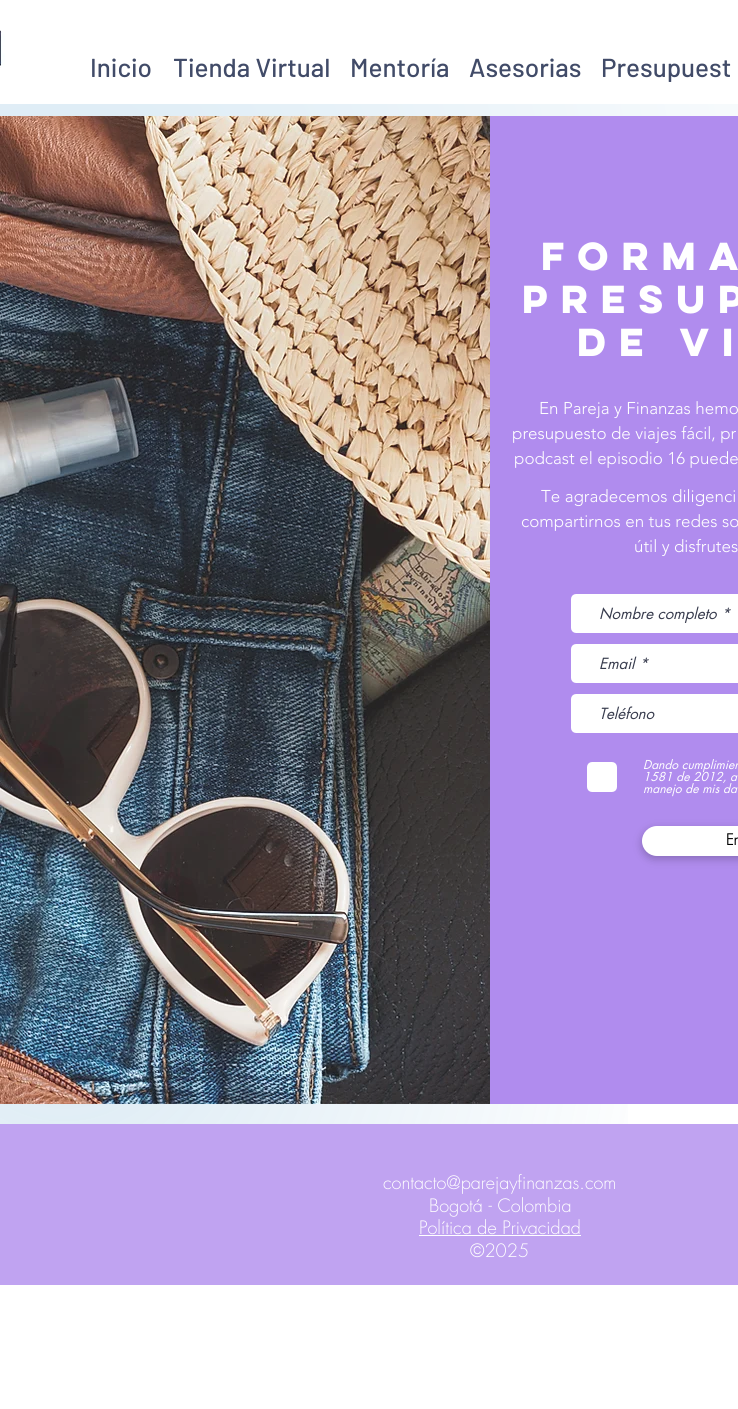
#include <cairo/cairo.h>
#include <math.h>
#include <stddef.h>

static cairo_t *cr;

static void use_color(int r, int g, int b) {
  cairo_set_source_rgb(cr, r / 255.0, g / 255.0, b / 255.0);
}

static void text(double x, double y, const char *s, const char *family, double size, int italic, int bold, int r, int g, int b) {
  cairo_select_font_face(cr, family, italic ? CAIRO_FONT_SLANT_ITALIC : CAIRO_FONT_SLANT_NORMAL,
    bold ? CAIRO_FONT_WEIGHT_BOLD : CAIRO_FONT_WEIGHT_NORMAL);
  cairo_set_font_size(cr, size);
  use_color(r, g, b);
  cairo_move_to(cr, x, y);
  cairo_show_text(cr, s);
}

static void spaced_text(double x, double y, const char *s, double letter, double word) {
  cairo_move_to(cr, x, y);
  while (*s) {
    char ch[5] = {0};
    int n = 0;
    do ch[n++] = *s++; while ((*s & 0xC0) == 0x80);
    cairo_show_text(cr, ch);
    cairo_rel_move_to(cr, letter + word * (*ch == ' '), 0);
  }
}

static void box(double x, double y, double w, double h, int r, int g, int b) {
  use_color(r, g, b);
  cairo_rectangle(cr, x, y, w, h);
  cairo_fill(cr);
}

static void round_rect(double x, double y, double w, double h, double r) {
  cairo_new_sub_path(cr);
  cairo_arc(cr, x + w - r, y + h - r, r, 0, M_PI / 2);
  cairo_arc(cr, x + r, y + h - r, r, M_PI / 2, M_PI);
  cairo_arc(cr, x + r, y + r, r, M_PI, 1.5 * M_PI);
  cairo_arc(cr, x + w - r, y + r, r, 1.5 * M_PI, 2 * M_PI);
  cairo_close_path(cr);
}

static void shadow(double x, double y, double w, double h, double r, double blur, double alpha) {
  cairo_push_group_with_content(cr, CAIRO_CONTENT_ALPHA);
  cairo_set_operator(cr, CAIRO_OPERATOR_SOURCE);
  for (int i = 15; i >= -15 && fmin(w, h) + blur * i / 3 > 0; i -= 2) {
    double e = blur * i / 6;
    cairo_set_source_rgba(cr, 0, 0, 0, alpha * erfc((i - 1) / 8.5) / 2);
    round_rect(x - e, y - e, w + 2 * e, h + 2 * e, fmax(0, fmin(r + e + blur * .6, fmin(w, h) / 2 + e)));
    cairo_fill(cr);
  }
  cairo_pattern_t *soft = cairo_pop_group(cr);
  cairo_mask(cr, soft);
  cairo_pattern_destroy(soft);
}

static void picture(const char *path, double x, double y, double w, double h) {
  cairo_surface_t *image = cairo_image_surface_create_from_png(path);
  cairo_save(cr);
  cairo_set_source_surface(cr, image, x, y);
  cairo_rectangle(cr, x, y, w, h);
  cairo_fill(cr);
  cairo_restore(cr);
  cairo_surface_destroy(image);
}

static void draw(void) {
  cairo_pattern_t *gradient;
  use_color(255, 255, 255);
  cairo_paint(cr);
  picture("img_01.png", 0, 30, 5, 38);
  gradient = cairo_pattern_create_radial(60, 233, 0, 60, 233, 1281);
  cairo_pattern_add_color_stop_rgba(gradient, 0, 0.855, 0.918, 0.957, 1);
  cairo_pattern_add_color_stop_rgba(gradient, 0.7, 1, 1, 1, 1);
  cairo_set_source(cr, gradient);
  cairo_pattern_destroy(gradient);
  cairo_rectangle(cr, 0, 104, 738, 967);
  cairo_fill(cr);
  gradient = cairo_pattern_create_radial(64, 1002, 0, 64, 1002, 1283);
  cairo_pattern_add_color_stop_rgba(gradient, 0, 0.298, 0.592, 0.78, 0.2);
  cairo_pattern_add_color_stop_rgba(gradient, 0.5, 0.298, 0.592, 0.78, 0);
  cairo_set_source(cr, gradient);
  cairo_pattern_destroy(gradient);
  cairo_rectangle(cr, 0, 429, 628, 695);
  cairo_fill(cr);
  picture("img_02.png", 0, 116, 490, 988);
  box(490, 116, 248, 988, 176, 140, 238);
  use_color(255, 255, 255);
  round_rect(572.5, 595.5, 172, 36, 3.5);
  cairo_fill_preserve(cr);
  cairo_set_line_width(cr, 3);
  cairo_stroke(cr);
  round_rect(572.5, 645.5, 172, 36, 3.5);
  cairo_fill_preserve(cr);
  cairo_stroke(cr);
  round_rect(572.5, 695.5, 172, 36, 3.5);
  cairo_fill_preserve(cr);
  cairo_stroke(cr);
  round_rect(588.5, 763.5, 27, 27, 3.5);
  cairo_fill_preserve(cr);
  cairo_stroke(cr);
  use_color(0, 0, 0);
  shadow(642, 829, 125, 30, 15, 4.5, 0.23);
  use_color(255, 255, 255);
  round_rect(642, 826, 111, 30, 15);
  cairo_fill(cr);
  box(0, 1124, 738, 161, 192, 163, 241);
  box(419, 1235, 162, 1, 255, 255, 255);
  text(90, 77, "Inicio", "Barlow Medium", 26, 0, 0, 65, 75, 104);
  text(173, 77, "Tienda Virtual", "Barlow Medium", 26, 0, 0, 65, 75, 104);
  text(350, 77, "Mentoría", "Barlow Medium", 26, 0, 0, 65, 75, 104);
  text(469, 77, "Asesorias", "Barlow Medium", 26, 0, 0, 65, 75, 104);
  text(601, 77, "Presupuest", "Barlow Medium", 26, 0, 0, 65, 75, 104);
  cairo_select_font_face(cr, "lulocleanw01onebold", CAIRO_FONT_SLANT_NORMAL, CAIRO_FONT_WEIGHT_BOLD);
  cairo_set_font_size(cr, 35);
  use_color(255, 255, 255);
  spaced_text(541, 270, "FORMA", 5.25, 0);
  spaced_text(522, 313, "presup", 5.25, 0);
  spaced_text(577, 356, "DE VI", 5.25, 0);
  text(539, 414, "En Pareja y Finanzas hemo", "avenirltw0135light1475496 Light", 17, 0, 0, 255, 255, 255);
  text(512, 439, "presupuesto de viajes fácil, pr", "avenirltw0135light1475496 Light", 17, 0, 0, 255, 255, 255);
  text(514, 464, "podcast el episodio 16 puede", "avenirltw0135light1475496 Light", 17, 0, 0, 255, 255, 255);
  text(541, 502, "Te agradecemos diligenci", "avenirltw0135light1475496 Light", 17, 0, 0, 255, 255, 255);
  text(521, 527, "compartirnos en tus redes so", "avenirltw0135light1475496 Light", 17, 0, 0, 255, 255, 255);
  text(634, 552, "útil y disfrutes", "avenirltw0135light1475496 Light", 17, 0, 0, 255, 255, 255);
  text(599, 619, "Nombre completo *", "futura", 15, 1, 0, 55, 59, 77);
  text(599, 669, "Email *", "futura", 15, 1, 0, 55, 59, 77);
  text(599, 719, "Teléfono", "futura", 15, 1, 0, 55, 59, 77);
  text(643, 769, "Dando cumplimien", "futura", 12, 1, 0, 255, 255, 255);
  text(643, 781, "1581 de 2012, a", "futura", 12, 1, 0, 255, 255, 255);
  text(643, 793, "manejo de mis da", "futura", 12, 1, 0, 255, 255, 255);
  text(726, 845, "En", "futura", 15, 0, 1, 0, 0, 0);
  text(383, 1189, "contacto@parejayfinanzas.com", "futura Light", 18, 0, 0, 255, 255, 255);
  text(429, 1212, "Bogotá - Colombia", "futura Light", 18, 0, 0, 255, 255, 255);
  text(419, 1234, "Política de Privacidad", "futura Light", 18, 0, 0, 255, 255, 255);
  text(470, 1257, "©2025", "futura Light", 18, 0, 0, 255, 255, 255);
}

int main(void) {
  cairo_surface_t *surface = cairo_image_surface_create(CAIRO_FORMAT_RGB24, 738, 1409);
  cr = cairo_create(surface);
  cairo_font_options_t *options = cairo_font_options_create();
  cairo_font_options_set_hint_metrics(options, CAIRO_HINT_METRICS_OFF);
  cairo_font_options_set_hint_style(options, CAIRO_HINT_STYLE_NONE);
  cairo_set_font_options(cr, options);
  cairo_set_miter_limit(cr, 4);
  draw();
  cairo_surface_write_to_png(surface, "out.png");
  cairo_font_options_destroy(options);
  cairo_destroy(cr);
  cairo_surface_destroy(surface);
  return 0;
}
